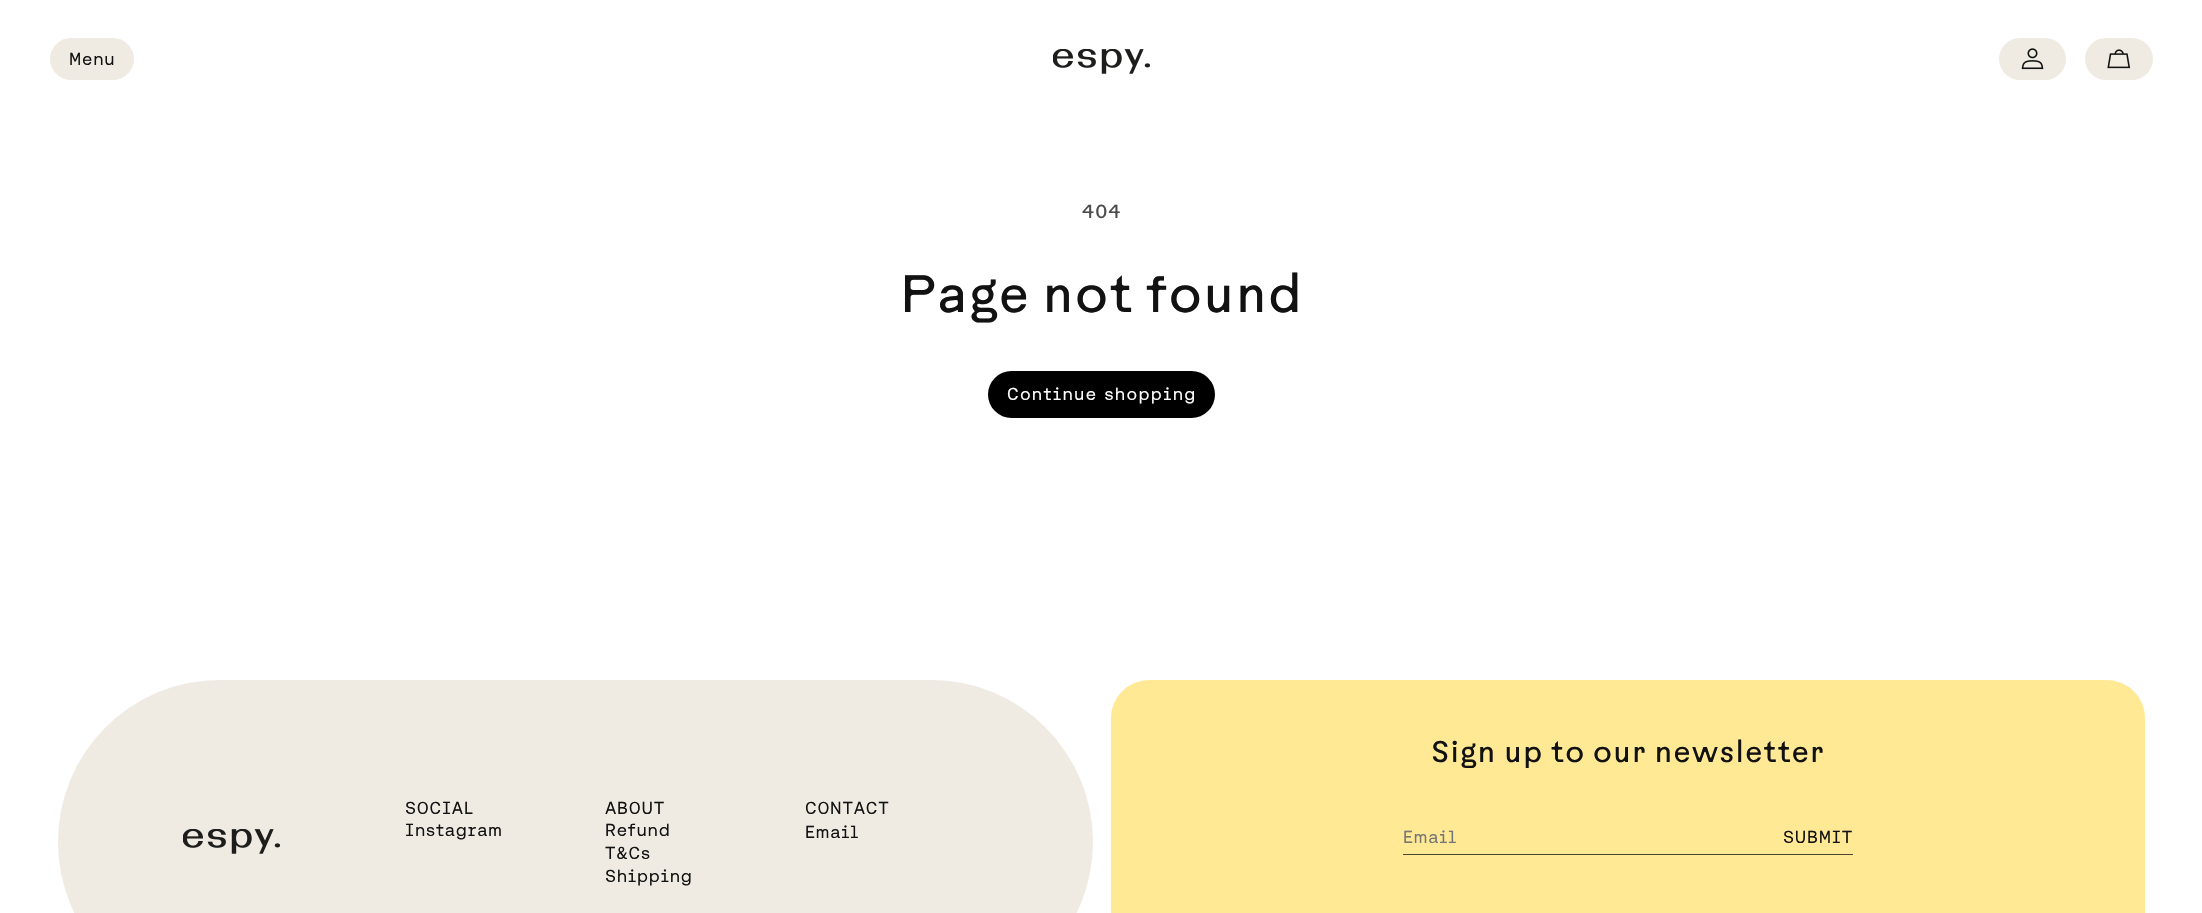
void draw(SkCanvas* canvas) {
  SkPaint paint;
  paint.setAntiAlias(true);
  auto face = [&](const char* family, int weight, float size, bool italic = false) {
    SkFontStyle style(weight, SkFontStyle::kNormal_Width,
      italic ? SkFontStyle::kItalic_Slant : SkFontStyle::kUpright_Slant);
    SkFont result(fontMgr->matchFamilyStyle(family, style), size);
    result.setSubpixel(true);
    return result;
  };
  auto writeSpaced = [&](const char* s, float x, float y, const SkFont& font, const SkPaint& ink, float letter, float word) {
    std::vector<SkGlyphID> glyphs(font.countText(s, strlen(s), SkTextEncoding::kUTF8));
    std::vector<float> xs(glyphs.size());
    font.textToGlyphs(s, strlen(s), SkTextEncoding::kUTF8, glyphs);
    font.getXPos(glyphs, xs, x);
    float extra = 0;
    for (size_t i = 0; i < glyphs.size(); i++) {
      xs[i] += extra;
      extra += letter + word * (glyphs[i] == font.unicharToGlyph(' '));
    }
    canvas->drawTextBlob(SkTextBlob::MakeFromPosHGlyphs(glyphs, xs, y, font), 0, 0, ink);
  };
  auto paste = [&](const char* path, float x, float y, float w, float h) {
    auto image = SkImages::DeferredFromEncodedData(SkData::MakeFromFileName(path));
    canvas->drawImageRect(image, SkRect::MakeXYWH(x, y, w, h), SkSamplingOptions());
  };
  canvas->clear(0xffffffff);
  paint.setColor(0xffefebe3);
  canvas->drawRoundRect(SkRect::MakeXYWH(50, 38, 84, 42), 21, 21, paint);
  paste("img/1.png", 1053, 49, 97, 25);
  canvas->drawRoundRect(SkRect::MakeXYWH(1999, 38, 67, 42), 21, 21, paint);
  paste("img/2.png", 2021, 48, 23, 22);
  canvas->drawRoundRect(SkRect::MakeXYWH(2085, 38, 68, 42), 21, 21, paint);
  paste("img/3.png", 2107, 49, 24, 20);
  paint.setColor(0xff000000);
  canvas->drawRoundRect(SkRect::MakeXYWH(988, 371, 227, 47), 23.5f, 23.5f, paint);
  paint.setColor(0xffefebe3);
  canvas->drawRoundRect(SkRect::MakeXYWH(58, 680, 1035, 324), 162, 162, paint);
  paste("img/4.png", 183, 829, 97, 25);
  paint.setColor(0xffffe995);
  canvas->drawRoundRect(SkRect::MakeXYWH(1111, 680, 1034, 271), 38, 38, paint);
  paint.setColor(0xff4d4833);
  canvas->drawRect(SkRect::MakeXYWH(1403, 854, 450, 1), paint);
  auto f0 = face("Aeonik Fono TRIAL", 400, 17.5f);
  paint.setColor(0xff121212);
  writeSpaced("Menu", 69, 65, f0, paint, 0.75f, 0);
  auto f1 = face("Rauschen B", 400, 19);
  paint.setColor(0xff4d4d4d);
  writeSpaced("404", 1082, 218, f1, paint, 0.75f, 0);
  auto f2 = face("Rauschen B", 400, 52.5f);
  paint.setColor(0xff121212);
  writeSpaced("Page not found", 899, 312, f2, paint, 0.75f, -2);
  paint.setColor(0xffffffff);
  writeSpaced("Continue shopping", 1007, 400, f0, paint, 1.25f, 0);
  paint.setColor(0xff121212);
  {
    const struct { const char* s; float x, y; } items[] = {
      {"SOCIAL", 405, 814},
      {"Instagram", 405, 836},
      {"ABOUT", 605, 814},
      {"Refund", 605, 836},
      {"T&Cs", 605, 859},
      {"Shipping", 605, 882},
      {"CONTACT", 805, 814},
      {"Email", 805, 838},
    };
    for (auto [s, x, y] : items) {
      writeSpaced(s, x, y, f0, paint, 0.75f, 0);
    }
  }
  auto f3 = face("Rauschen B", 400, 30);
  writeSpaced("Sign up to our newsletter", 1431, 762, f3, paint, 0.75f, -0.5f);
  paint.setColor(0xff757575);
  writeSpaced("Email", 1403, 843, f0, paint, 0.75f, 0);
  paint.setColor(0xff121212);
  writeSpaced("SUBMIT", 1783, 843, f0, paint, 0.75f, 0);
}
